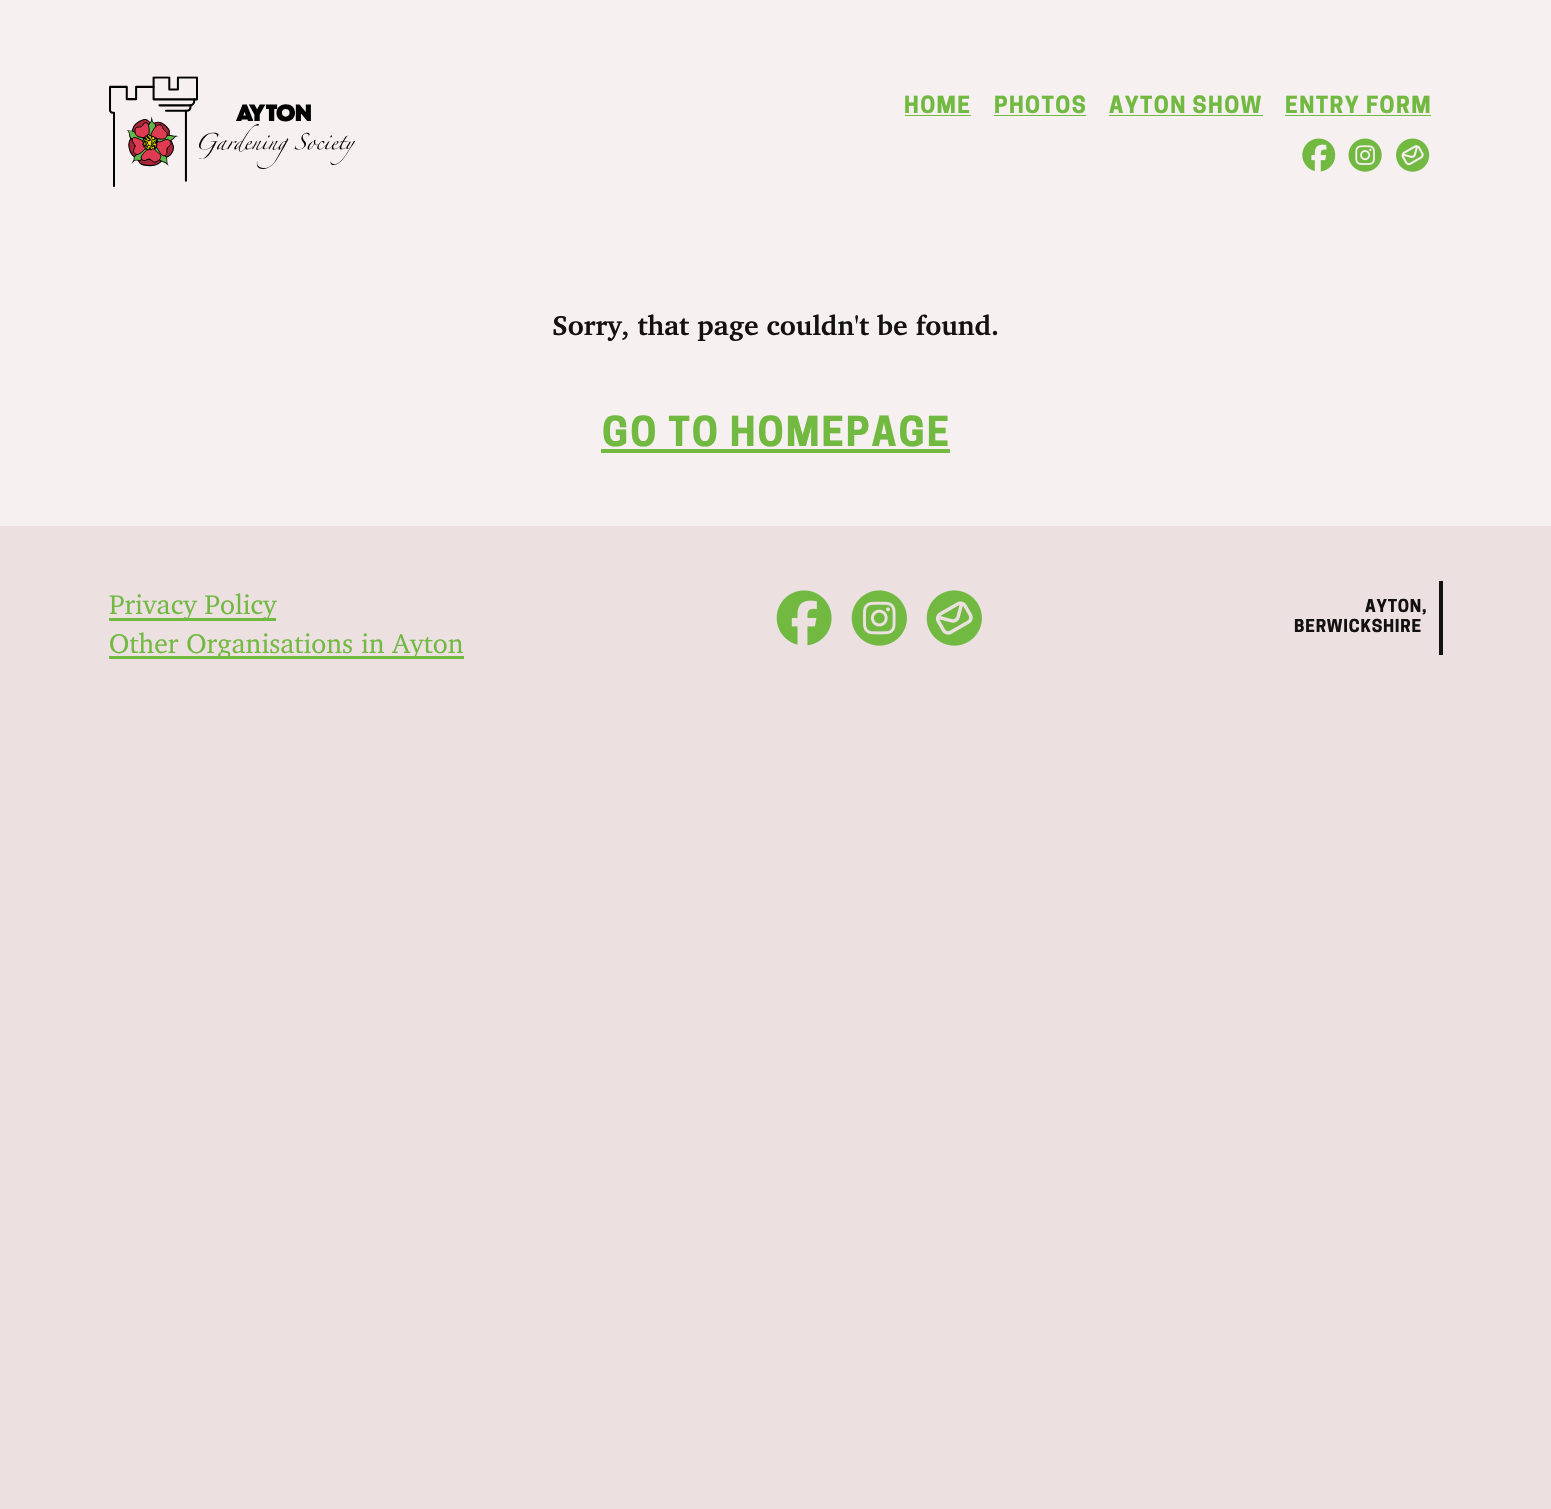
void draw(SkCanvas* canvas) {
  SkPaint paint;
  paint.setAntiAlias(true);
  auto face = [&](const char* family, int weight, float size, bool italic = false) {
    SkFontStyle style(weight, SkFontStyle::kNormal_Width,
      italic ? SkFontStyle::kItalic_Slant : SkFontStyle::kUpright_Slant);
    SkFont result(fontMgr->matchFamilyStyle(family, style), size);
    result.setSubpixel(true);
    return result;
  };
  auto writeSpaced = [&](const char* s, float x, float y, const SkFont& font, const SkPaint& ink, float letter, float word) {
    std::vector<SkGlyphID> glyphs(font.countText(s, strlen(s), SkTextEncoding::kUTF8));
    std::vector<float> xs(glyphs.size());
    font.textToGlyphs(s, strlen(s), SkTextEncoding::kUTF8, glyphs);
    font.getXPos(glyphs, xs, x);
    float extra = 0;
    for (size_t i = 0; i < glyphs.size(); i++) {
      xs[i] += extra;
      extra += letter + word * (glyphs[i] == font.unicharToGlyph(' '));
    }
    canvas->drawTextBlob(SkTextBlob::MakeFromPosHGlyphs(glyphs, xs, y, font), 0, 0, ink);
  };
  auto paste = [&](const char* path, float x, float y, float w, float h) {
    auto image = SkImages::DeferredFromEncodedData(SkData::MakeFromFileName(path));
    canvas->drawImageRect(image, SkRect::MakeXYWH(x, y, w, h), SkSamplingOptions());
  };
  canvas->clear(0xffece0e1);
  paint.setColor(0xfff6f0f0);
  canvas->drawRect(SkRect::MakeXYWH(0, 0, 1551, 526), paint);
  paste("img/1.png", 109, 76, 246, 111);
  {
    const struct { float x, y, w, h; SkColor color; } items[] = {
      {905, 115, 66, 1, 0xff72b942},
      {994, 115, 92, 1, 0xff72b942},
      {1109, 115, 154, 1, 0xff72b942},
      {1285, 115, 146, 1, 0xff72b942},
    };
    for (auto [x, y, w, h, color] : items) {
      paint.setColor(color);
      canvas->drawRect(SkRect::MakeXYWH(x, y, w, h), paint);
    }
  }
  paste("img/2.png", 1302, 138, 34, 34);
  paste("img/3.png", 1348, 138, 34, 34);
  paste("img/4.png", 1396, 138, 34, 34);
  {
    const struct { float x, y, w, h; SkColor color; } items[] = {
      {601, 449, 349, 4, 0xff72b942},
      {109, 618, 167, 3, 0xff72b942},
      {109, 656, 355, 3, 0xff72b942},
    };
    for (auto [x, y, w, h, color] : items) {
      paint.setColor(color);
      canvas->drawRect(SkRect::MakeXYWH(x, y, w, h), paint);
    }
  }
  paste("img/5.png", 776, 590, 56, 56);
  paste("img/6.png", 851, 590, 56, 56);
  paste("img/7.png", 926, 590, 56, 56);
  paint.setColor(0xff131111);
  canvas->drawRect(SkRect::MakeXYWH(1439, 581, 4, 74), paint);
  auto f0 = face("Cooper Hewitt", 700, 22.25f);
  paint.setColor(0xff72b942);
  {
    const struct { const char* s; float x, y; } items[] = {
      {"HOME", 904, 113},
      {"PHOTOS", 994, 113},
      {"AYTON SHOW", 1109, 113},
      {"ENTRY FORM", 1285, 113},
    };
    for (auto [s, x, y] : items) {
      writeSpaced(s, x, y, f0, paint, 1.4f, 0);
    }
  }
  auto f1 = face("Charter", 700, 27.75f);
  paint.setColor(0xff131111);
  canvas->drawString("Sorry, that page couldn't be found.", 552, 335, f1, paint);
  auto f2 = face("Cooper Hewitt", 700, 38.9f);
  paint.setColor(0xff72b942);
  writeSpaced("GO TO HOMEPAGE", 602, 446, f2, paint, 2, 0);
  auto f3 = face("Charter", 400, 27.75f);
  canvas->drawString("Privacy Policy", 109, 614, f3, paint);
  canvas->drawString("Other Organisations in Ayton", 109, 653, f3, paint);
  auto f4 = face("Cooper Hewitt", 700, 16.75f);
  paint.setColor(0xff131111);
  writeSpaced("AYTON,", 1365, 612, f4, paint, 0.75f, 0);
  writeSpaced("BERWICKSHIRE", 1294, 632, f4, paint, 0.75f, 0);
}
